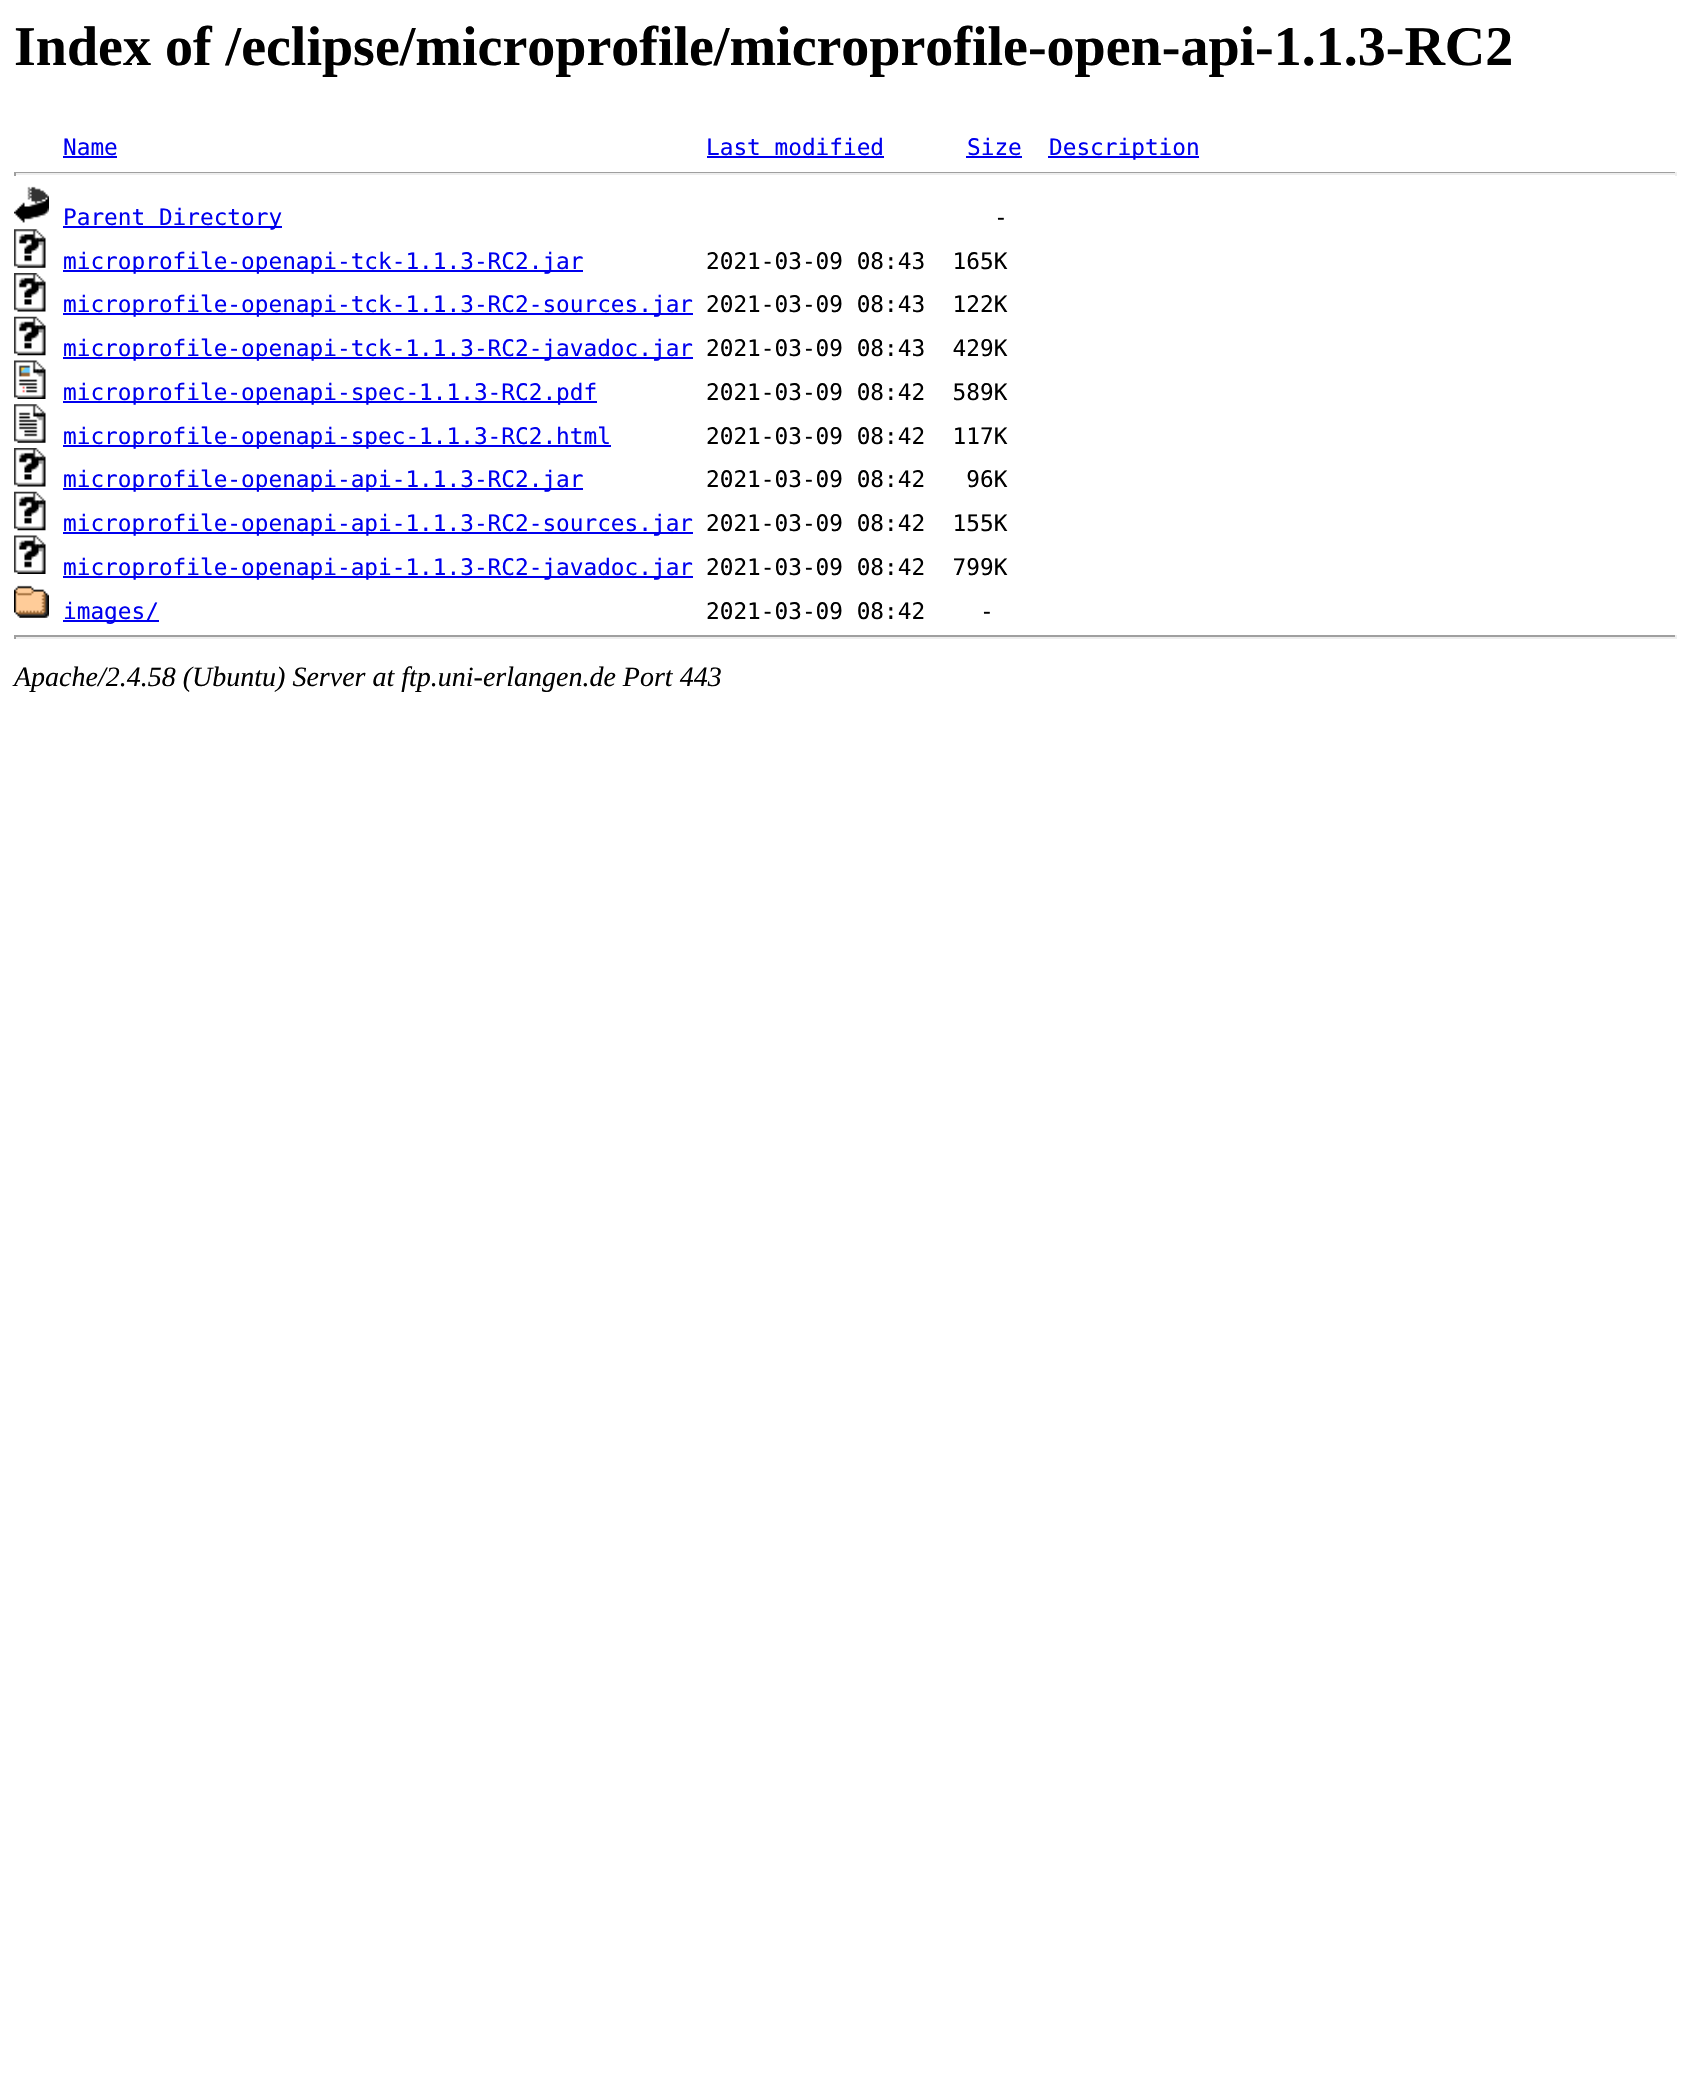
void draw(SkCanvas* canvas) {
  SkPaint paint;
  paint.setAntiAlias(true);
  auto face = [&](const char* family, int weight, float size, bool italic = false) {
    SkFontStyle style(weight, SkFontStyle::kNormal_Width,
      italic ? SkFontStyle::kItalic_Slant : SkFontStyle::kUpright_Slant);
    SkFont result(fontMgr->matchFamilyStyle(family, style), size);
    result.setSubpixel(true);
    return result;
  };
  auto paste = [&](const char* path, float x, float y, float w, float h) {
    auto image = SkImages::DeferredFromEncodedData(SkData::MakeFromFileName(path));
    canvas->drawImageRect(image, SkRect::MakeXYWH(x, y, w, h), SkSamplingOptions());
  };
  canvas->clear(0xffffffff);
  {
    const struct { float x, y, w, h; SkColor color; } items[] = {
      {63, 156, 54, 2, 0xff0000ee},
      {707, 156, 177, 2, 0xff0000ee},
      {966, 156, 56, 2, 0xff0000ee},
      {1048, 156, 151, 2, 0xff0000ee},
      {14, 172, 1663, 1, 0xff9f9f9f},
      {1675, 172, 2, 4, 0xffeeeeee},
      {14, 173, 1663, 2, 0xffeeeeee},
      {14, 172, 2, 4, 0xff9f9f9f},
    };
    for (auto [x, y, w, h, color] : items) {
      paint.setColor(color);
      canvas->drawRect(SkRect::MakeXYWH(x, y, w, h), paint);
    }
  }
  paste("img/1.png", 14, 186, 35, 37);
  paint.setColor(0xff0000ee);
  canvas->drawRect(SkRect::MakeXYWH(63, 226, 219, 2), paint);
  paste("img/2.png", 14, 229, 32, 39);
  canvas->drawRect(SkRect::MakeXYWH(63, 270, 520, 2), paint);
  paste("img/3.png", 14, 273, 32, 39);
  canvas->drawRect(SkRect::MakeXYWH(63, 313, 630, 2), paint);
  paste("img/4.png", 14, 316, 32, 40);
  canvas->drawRect(SkRect::MakeXYWH(63, 357, 630, 2), paint);
  paste("img/5.png", 14, 360, 32, 39);
  canvas->drawRect(SkRect::MakeXYWH(63, 401, 534, 2), paint);
  paste("img/6.png", 14, 404, 32, 39);
  canvas->drawRect(SkRect::MakeXYWH(63, 445, 548, 2), paint);
  paste("img/3.png", 14, 448, 32, 39);
  canvas->drawRect(SkRect::MakeXYWH(63, 488, 520, 2), paint);
  paste("img/4.png", 14, 491, 32, 40);
  canvas->drawRect(SkRect::MakeXYWH(63, 532, 630, 2), paint);
  paste("img/7.png", 14, 535, 32, 39);
  canvas->drawRect(SkRect::MakeXYWH(63, 576, 630, 2), paint);
  paste("img/8.png", 14, 585, 35, 33);
  {
    const struct { float x, y, w, h; SkColor color; } items[] = {
      {63, 620, 96, 2, 0xff0000ee},
      {14, 635, 1663, 2, 0xff9f9f9f},
      {1675, 635, 2, 4, 0xffeeeeee},
      {14, 637, 1663, 2, 0xffeeeeee},
      {14, 635, 2, 4, 0xff9f9f9f},
    };
    for (auto [x, y, w, h, color] : items) {
      paint.setColor(color);
      canvas->drawRect(SkRect::MakeXYWH(x, y, w, h), paint);
    }
  }
  auto f0 = face("Liberation Serif", 700, 56);
  paint.setColor(0xff000000);
  canvas->drawString("Index of /eclipse/microprofile/microprofile-open-api-1.1.3-RC2", 14, 65, f0, paint);
  auto f1 = face("DejaVu Sans Mono", 400, 22.75f);
  paint.setColor(0xff0000ee);
  {
    const struct { const char* s; float x, y; } items[] = {
      {"Name", 63, 155},
      {"Last modified", 706, 155},
      {"Size", 967, 155},
      {"Description", 1049, 155},
      {"Parent Directory", 63, 225},
    };
    for (auto [s, x, y] : items) {
      canvas->drawString(s, x, y, f1, paint);
    }
  }
  paint.setColor(0xff000000);
  canvas->drawString("-", 994, 225, f1, paint);
  paint.setColor(0xff0000ee);
  canvas->drawString("microprofile-openapi-tck-1.1.3-RC2.jar", 63, 269, f1, paint);
  paint.setColor(0xff000000);
  canvas->drawString("2021-03-09 08:43  165K", 706, 269, f1, paint);
  paint.setColor(0xff0000ee);
  canvas->drawString("microprofile-openapi-tck-1.1.3-RC2-sources.jar", 63, 312, f1, paint);
  paint.setColor(0xff000000);
  canvas->drawString("2021-03-09 08:43  122K", 706, 312, f1, paint);
  paint.setColor(0xff0000ee);
  canvas->drawString("microprofile-openapi-tck-1.1.3-RC2-javadoc.jar", 63, 356, f1, paint);
  paint.setColor(0xff000000);
  canvas->drawString("2021-03-09 08:43  429K", 706, 356, f1, paint);
  paint.setColor(0xff0000ee);
  canvas->drawString("microprofile-openapi-spec-1.1.3-RC2.pdf", 63, 400, f1, paint);
  paint.setColor(0xff000000);
  canvas->drawString("2021-03-09 08:42  589K", 706, 400, f1, paint);
  paint.setColor(0xff0000ee);
  canvas->drawString("microprofile-openapi-spec-1.1.3-RC2.html", 63, 444, f1, paint);
  paint.setColor(0xff000000);
  canvas->drawString("2021-03-09 08:42  117K", 706, 444, f1, paint);
  paint.setColor(0xff0000ee);
  canvas->drawString("microprofile-openapi-api-1.1.3-RC2.jar", 63, 487, f1, paint);
  paint.setColor(0xff000000);
  canvas->drawString("2021-03-09 08:42   96K", 706, 487, f1, paint);
  paint.setColor(0xff0000ee);
  canvas->drawString("microprofile-openapi-api-1.1.3-RC2-sources.jar", 63, 531, f1, paint);
  paint.setColor(0xff000000);
  canvas->drawString("2021-03-09 08:42  155K", 706, 531, f1, paint);
  paint.setColor(0xff0000ee);
  canvas->drawString("microprofile-openapi-api-1.1.3-RC2-javadoc.jar", 63, 575, f1, paint);
  paint.setColor(0xff000000);
  canvas->drawString("2021-03-09 08:42  799K", 706, 575, f1, paint);
  paint.setColor(0xff0000ee);
  canvas->drawString("images/", 63, 619, f1, paint);
  paint.setColor(0xff000000);
  canvas->drawString("2021-03-09 08:42    -", 706, 619, f1, paint);
  auto f2 = face("Liberation Serif", 400, 28, true);
  canvas->drawString("Apache/2.4.58 (Ubuntu) Server at ftp.uni-erlangen.de Port 443", 14, 686, f2, paint);
}
